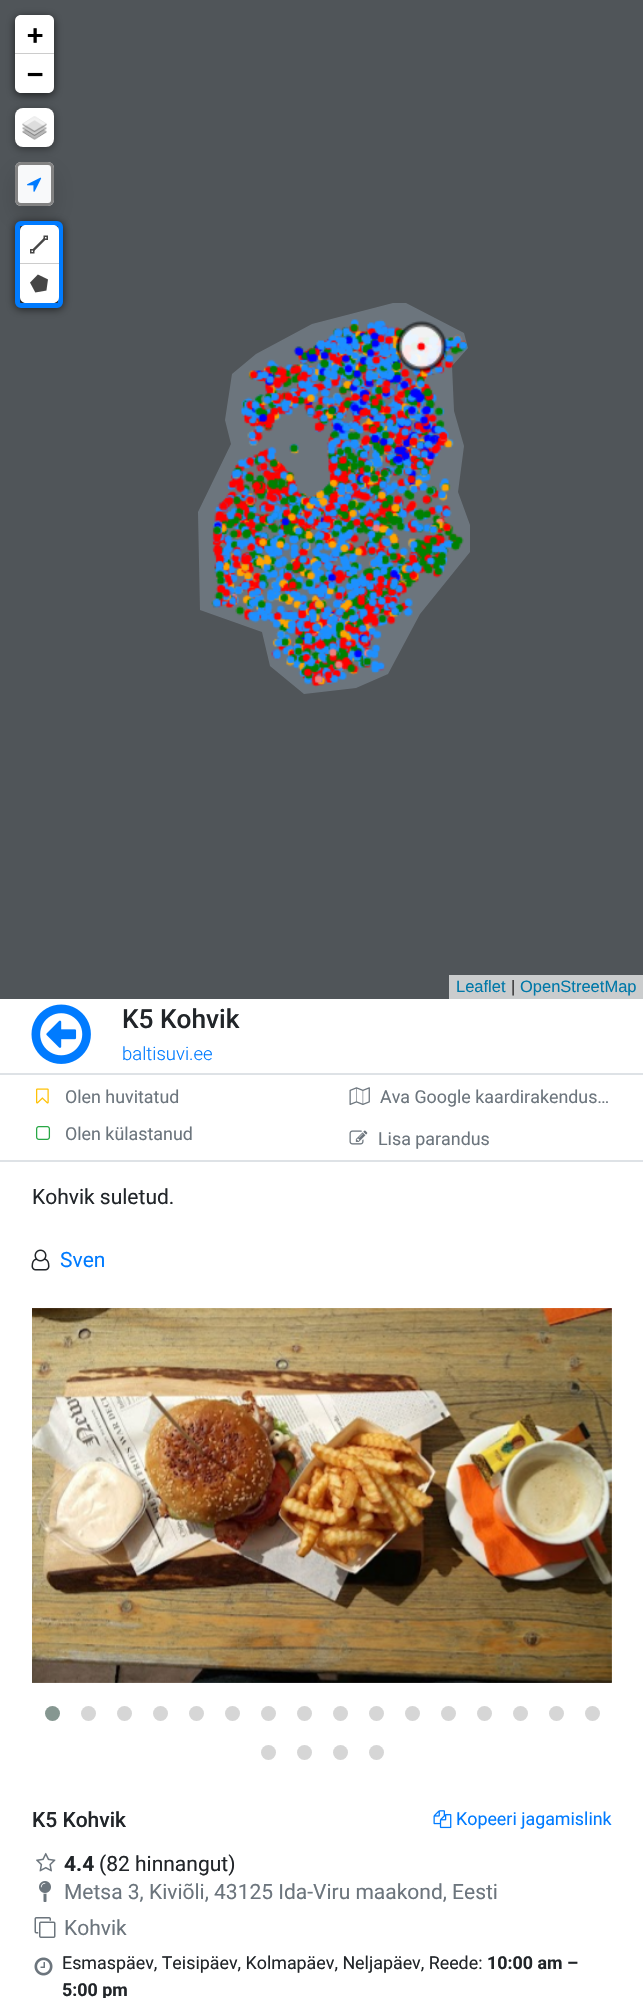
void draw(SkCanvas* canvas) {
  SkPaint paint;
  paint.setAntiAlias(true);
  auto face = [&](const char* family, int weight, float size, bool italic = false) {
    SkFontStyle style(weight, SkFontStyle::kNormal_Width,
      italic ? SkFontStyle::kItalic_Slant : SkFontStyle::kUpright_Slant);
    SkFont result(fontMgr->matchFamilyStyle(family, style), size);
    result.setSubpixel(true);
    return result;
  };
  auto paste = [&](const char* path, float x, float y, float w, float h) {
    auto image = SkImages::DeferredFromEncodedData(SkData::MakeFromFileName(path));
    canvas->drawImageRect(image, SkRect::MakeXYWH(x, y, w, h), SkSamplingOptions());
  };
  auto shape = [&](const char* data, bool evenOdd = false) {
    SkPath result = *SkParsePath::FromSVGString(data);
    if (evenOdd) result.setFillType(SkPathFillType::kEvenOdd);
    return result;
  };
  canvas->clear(0xffffffff);
  paint.setColor(0xff6c757d);
  canvas->drawRect(SkRect::MakeXYWH(0, 0, 643, 999), paint);
  paste("img/1.png", 211, 319, 258, 369);
  canvas->save();
  canvas->clipRect(SkRect::MakeXYWH(0, 0, 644, 999));
  paint.setColor(0x80333333);
  canvas->drawPath(shape("M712 1102H-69V-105H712ZM256 354L232 374L225 420L231 444L198 512L200 610L262 632L270 666L304 694L356 688L388 674L420 614L470 552V525L458 492L464 446L454 411L452 366L468 348L464 333L406 303H393L312 324Z", true), paint);
  canvas->restore();
  paint.setColor(0xa6000000);
  paint.setMaskFilter(SkMaskFilter::MakeBlur(kNormal_SkBlurStyle, 4));
  canvas->drawRoundRect(SkRect::MakeXYWH(15, 17, 39, 78), 6, 6, paint);
  paint.setMaskFilter(nullptr);
  paint.setColor(0xffffffff);
  canvas->drawPath(shape("M21 15H48C51.5 15 54 17.5 54 21V54H15V21C15 17.5 17.5 15 21 15Z"), paint);
  paint.setColor(0xffcccccc);
  canvas->drawRect(SkRect::MakeXYWH(15, 53, 39, 1), paint);
  paint.setColor(0xffffffff);
  canvas->drawPath(shape("M15 54H54V87C54 90.5 51.5 93 48 93H21C17.5 93 15 90.5 15 87Z"), paint);
  paint.setColor(0x66000000);
  paint.setMaskFilter(SkMaskFilter::MakeBlur(kNormal_SkBlurStyle, 4));
  canvas->drawRoundRect(SkRect::MakeXYWH(15, 110, 39, 39), 8, 8, paint);
  paint.setMaskFilter(nullptr);
  paint.setColor(0xffffffff);
  canvas->drawRoundRect(SkRect::MakeXYWH(15, 108, 39, 39), 8, 8, paint);
  paste("img/2.png", 22, 116, 25, 24);
  paint.setColor(0x26000000);
  paint.setMaskFilter(SkMaskFilter::MakeBlur(kNormal_SkBlurStyle, 10.5f));
  canvas->drawRoundRect(SkRect::MakeXYWH(15, 173, 39, 43), 6, 6, paint);
  paint.setMaskFilter(nullptr);
  paint.setColor(0xfff8f9fa);
  canvas->drawRoundRect(SkRect::MakeXYWH(15, 162, 39, 44), 6, 6, paint);
  paint.setStroke(true);
  paint.setStrokeWidth(3);
  paint.setColor(0xcc646464);
  canvas->drawRoundRect(SkRect::MakeXYWH(16.5f, 163.5f, 36, 41), 4.5f, 4.5f, paint);
  paste("img/3.png", 27, 177, 15, 15);
  paint.setStroke(false);
  paint.setColor(0xa6000000);
  paint.setMaskFilter(SkMaskFilter::MakeBlur(kNormal_SkBlurStyle, 4));
  canvas->drawRoundRect(SkRect::MakeXYWH(15, 222, 48, 87), 6, 6, paint);
  paint.setMaskFilter(nullptr);
  paint.setStroke(true);
  paint.setStrokeWidth(5);
  paint.setColor(0xff007bff);
  canvas->drawRoundRect(SkRect::MakeXYWH(17.5f, 223.5f, 43, 82), 3.5f, 3.5f, paint);
  paint.setStroke(false);
  paint.setColor(0xffffffff);
  canvas->drawPath(shape("M26 225H53C56.5 225 59 227.5 59 231V263H20V231C20 227.5 22.5 225 26 225Z"), paint);
  paste("img/4.png", 30, 235, 18, 19);
  paint.setColor(0xffcccccc);
  canvas->drawRect(SkRect::MakeXYWH(20, 263, 39, 1), paint);
  paint.setColor(0xffffffff);
  canvas->drawPath(shape("M20 264H59V297C59 300.5 56.5 303 53 303H26C22.5 303 20 300.5 20 297Z"), paint);
  paste("img/5.png", 30, 274, 18, 19);
  paint.setColor(0xffcacccd);
  canvas->drawRect(SkRect::MakeXYWH(449, 975, 194, 24), paint);
  paint.setColor(0xffdee2e6);
  canvas->drawRect(SkRect::MakeXYWH(0, 1073, 643, 2), paint);
  paste("img/6.png", 31, 1004, 60, 60);
  canvas->drawRect(SkRect::MakeXYWH(0, 1160, 643, 2), paint);
  paste("img/7.png", 36, 1088, 13, 16);
  paste("img/8.png", 36, 1126, 15, 14);
  paste("img/9.png", 349, 1087, 21, 18);
  paste("img/10.png", 349, 1130, 19, 15);
  paste("img/11.png", 31, 1249, 19, 22);
  paste("img/12.png", 32, 1308, 580, 375);
  paste("img/13.png", 32, 1308, 580, 375);
  paint.setColor(0xff869791);
  canvas->drawCircle(52.5f, 1713.5f, 7.5f, paint);
  paint.setColor(0xffd6d6d6);
  canvas->drawCircle(88.5f, 1713.5f, 7.5f, paint);
  canvas->drawCircle(124.5f, 1713.5f, 7.5f, paint);
  canvas->drawCircle(160.5f, 1713.5f, 7.5f, paint);
  canvas->drawCircle(196.5f, 1713.5f, 7.5f, paint);
  canvas->drawCircle(232.5f, 1713.5f, 7.5f, paint);
  canvas->drawCircle(268.5f, 1713.5f, 7.5f, paint);
  canvas->drawCircle(304.5f, 1713.5f, 7.5f, paint);
  canvas->drawCircle(340.5f, 1713.5f, 7.5f, paint);
  canvas->drawCircle(376.5f, 1713.5f, 7.5f, paint);
  canvas->drawCircle(412.5f, 1713.5f, 7.5f, paint);
  canvas->drawCircle(448.5f, 1713.5f, 7.5f, paint);
  canvas->drawCircle(484.5f, 1713.5f, 7.5f, paint);
  canvas->drawCircle(520.5f, 1713.5f, 7.5f, paint);
  canvas->drawCircle(556.5f, 1713.5f, 7.5f, paint);
  canvas->drawCircle(592.5f, 1713.5f, 7.5f, paint);
  canvas->drawCircle(268.5f, 1752.5f, 7.5f, paint);
  canvas->drawCircle(304.5f, 1752.5f, 7.5f, paint);
  canvas->drawCircle(340.5f, 1752.5f, 7.5f, paint);
  canvas->drawCircle(376.5f, 1752.5f, 7.5f, paint);
  paste("img/14.png", 433, 1810, 19, 19);
  paste("img/15.png", 36, 1852, 20, 20);
  paste("img/16.png", 39, 1881, 12, 21);
  paste("img/17.png", 34, 1917, 22, 21);
  paste("img/18.png", 34, 1957, 19, 19);
  auto f0 = face("DejaVu Sans Mono", 700, 27);
  paint.setColor(0xff000000);
  canvas->drawString("+", 27, 44, f0, paint);
  canvas->drawString("−", 27, 83, f0, paint);
  auto f1 = face("Liberation Sans", 400, 16.5f);
  paint.setColor(0xff0078a8);
  canvas->drawString("Leaflet", 456, 992, f1, paint);
  paint.setColor(0xff333333);
  canvas->drawString("|", 511, 992, f1, paint);
  paint.setColor(0xff0078a8);
  canvas->drawString("OpenStreetMap", 520, 992, f1, paint);
  auto f2 = face("Roboto", 500, 26.25f);
  paint.setColor(0xff212529);
  canvas->drawString("K5 Kohvik", 122, 1028, f2, paint);
  auto f3 = face("Roboto", 300, 18.5f);
  paint.setColor(0xff007bff);
  canvas->drawString("baltisuvi.ee", 122, 1060, f3, paint);
  auto f4 = face("Roboto", 400, 17.85f);
  paint.setColor(0xff6c757d);
  {
    const struct { const char* s; float x, y; } items[] = {
      {"Olen huvitatud", 65, 1103},
      {"Olen külastanud", 65, 1140},
      {"Ava Google kaardirakendus…", 380, 1103},
      {"Lisa parandus", 378, 1145},
    };
    for (auto [s, x, y] : items) {
      canvas->drawString(s, x, y, f4, paint);
    }
  }
  auto f5 = face("Roboto", 400, 21);
  paint.setColor(0xff212529);
  canvas->drawString("Kohvik suletud.", 32, 1204, f5, paint);
  paint.setColor(0xff007bff);
  canvas->drawString("Sven", 60, 1267, f5, paint);
  auto f6 = face("Roboto", 500, 21);
  paint.setColor(0xff212529);
  canvas->drawString("K5 Kohvik", 32, 1827, f6, paint);
  paint.setColor(0xff007bff);
  canvas->drawString("Kopeeri jagamislink", 456, 1825, f4, paint);
  auto f7 = face("Roboto", 700, 21);
  paint.setColor(0xff212529);
  canvas->drawString("4.4", 64, 1871, f7, paint);
  canvas->drawString("(82 hinnangut)", 99, 1871, f5, paint);
  paint.setColor(0xff6c757d);
  canvas->drawString("Metsa 3, Kiviõli, 43125 Ida-Viru maakond, Eesti", 64, 1899, f5, paint);
  canvas->drawString("Kohvik", 64, 1935, f5, paint);
  paint.setColor(0xff212529);
  canvas->drawString("Esmaspäev, Teisipäev, Kolmapäev, Neljapäev, Reede:", 62, 1969, f4, paint);
  auto f8 = face("Roboto", 700, 17.85f);
  canvas->drawString("10:00 am –", 487, 1969, f8, paint);
  canvas->drawString("5:00 pm", 62, 1996, f8, paint);
}
